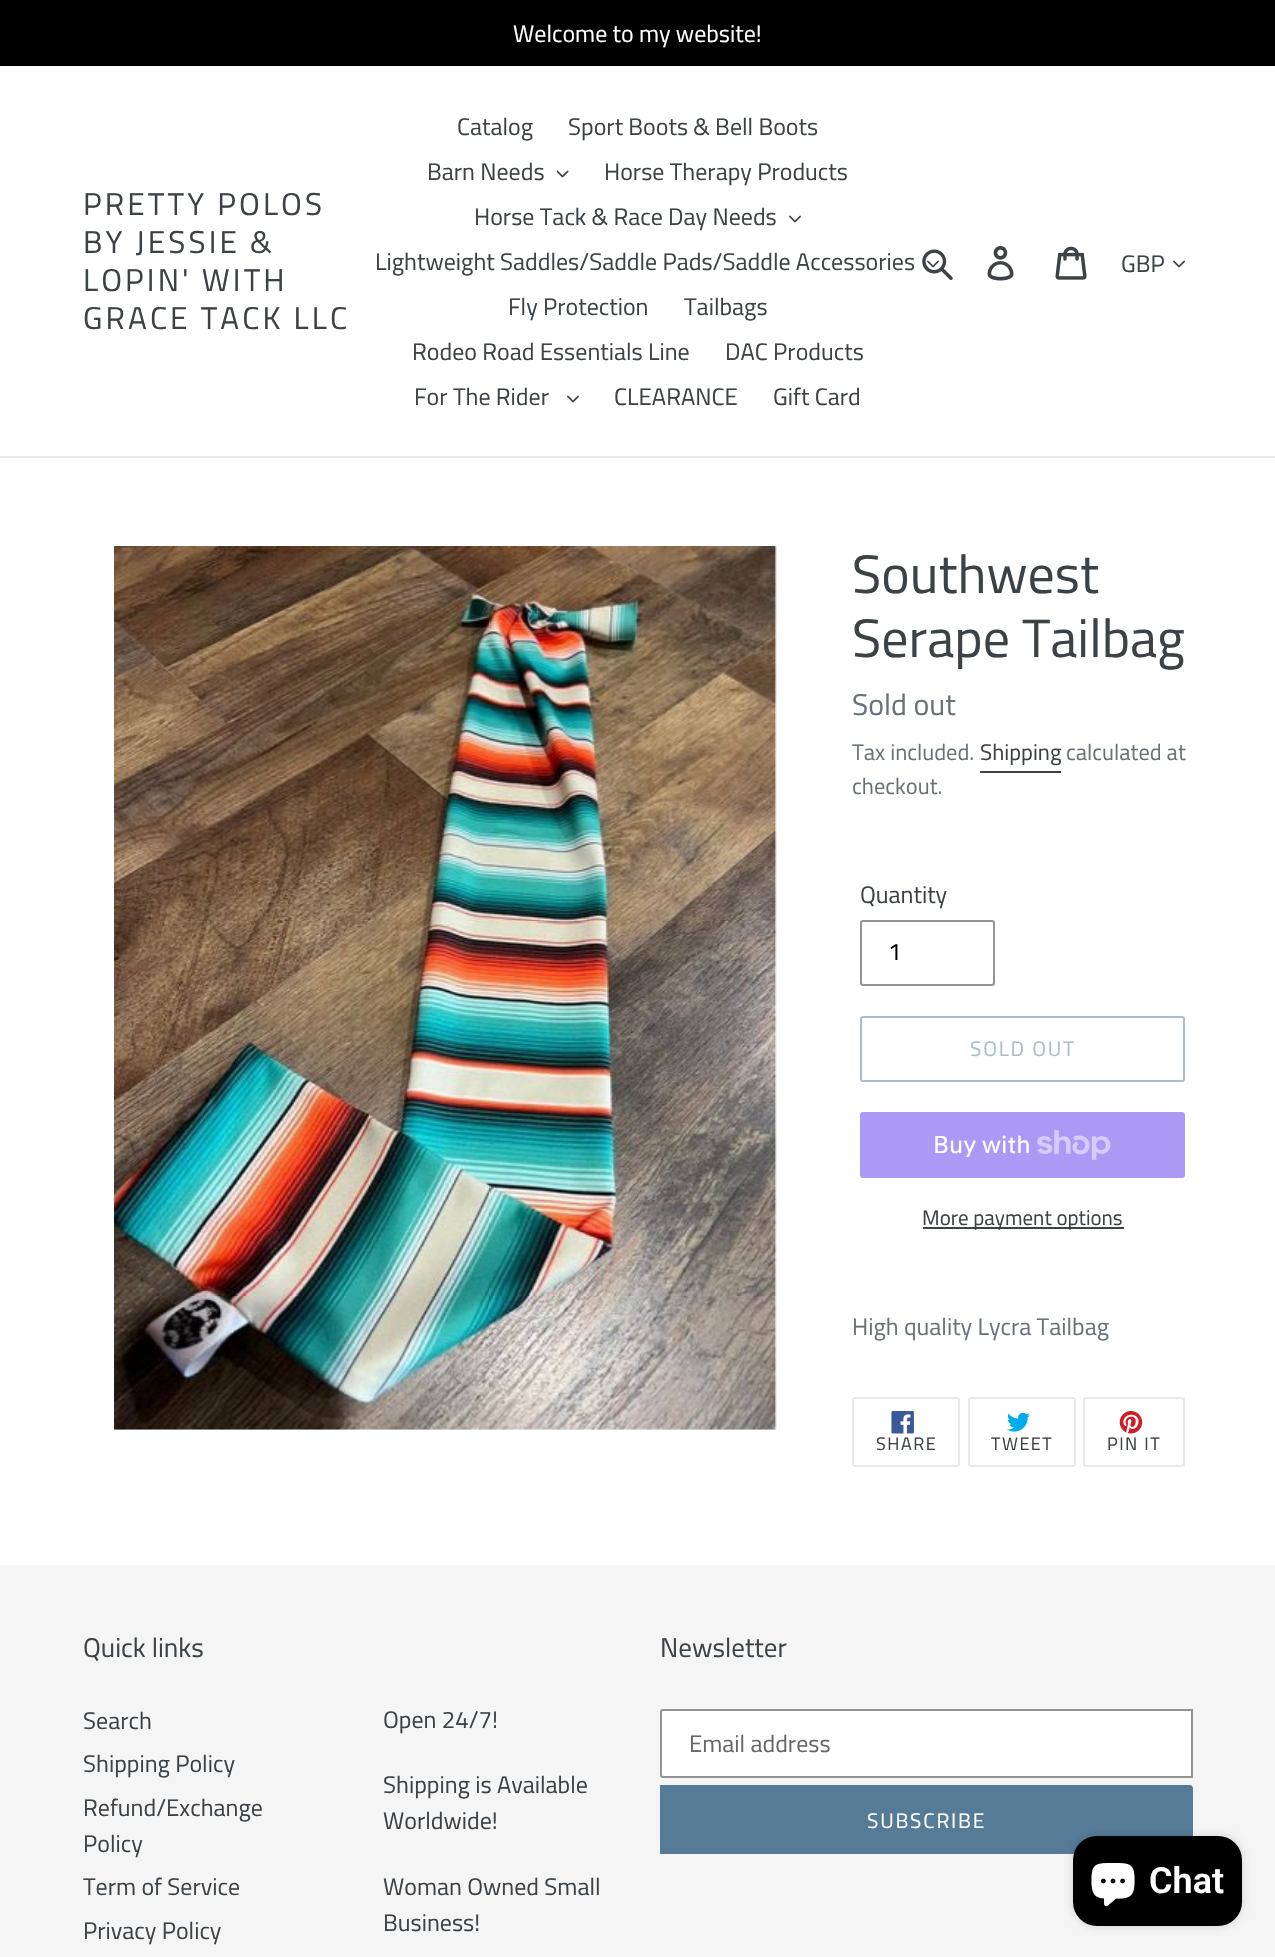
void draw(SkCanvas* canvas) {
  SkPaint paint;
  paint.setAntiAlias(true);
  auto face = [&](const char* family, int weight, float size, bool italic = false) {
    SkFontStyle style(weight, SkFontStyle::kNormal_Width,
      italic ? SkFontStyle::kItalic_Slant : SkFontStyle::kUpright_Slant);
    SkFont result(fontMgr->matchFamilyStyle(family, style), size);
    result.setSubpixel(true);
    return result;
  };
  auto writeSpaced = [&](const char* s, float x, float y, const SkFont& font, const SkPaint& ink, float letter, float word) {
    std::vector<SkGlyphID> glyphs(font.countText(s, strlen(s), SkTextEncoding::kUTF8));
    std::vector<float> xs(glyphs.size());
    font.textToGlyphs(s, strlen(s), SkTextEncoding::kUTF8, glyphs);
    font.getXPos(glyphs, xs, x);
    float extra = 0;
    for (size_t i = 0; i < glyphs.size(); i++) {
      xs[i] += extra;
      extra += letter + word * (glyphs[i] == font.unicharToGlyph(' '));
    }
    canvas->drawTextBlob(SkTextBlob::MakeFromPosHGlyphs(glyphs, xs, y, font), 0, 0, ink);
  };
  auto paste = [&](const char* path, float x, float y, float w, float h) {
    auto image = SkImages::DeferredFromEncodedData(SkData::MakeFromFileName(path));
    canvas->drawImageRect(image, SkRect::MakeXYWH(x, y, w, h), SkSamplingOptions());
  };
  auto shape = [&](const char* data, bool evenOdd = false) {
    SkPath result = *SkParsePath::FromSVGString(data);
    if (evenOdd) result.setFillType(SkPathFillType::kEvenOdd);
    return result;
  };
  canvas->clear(0xffffffff);
  paint.setColor(0xff000000);
  canvas->drawRect(SkRect::MakeXYWH(0, 0, 1275, 66), paint);
  paint.setColor(0xffe8e9eb);
  canvas->drawRect(SkRect::MakeXYWH(0, 456, 1275, 2), paint);
  paste("img/1.png", 557, 170, 12, 8);
  paste("img/2.png", 789, 215, 12, 8);
  paste("img/2.png", 927, 260, 12, 8);
  paste("img/2.png", 567, 395, 12, 8);
  paste("img/3.png", 922, 249, 31, 31);
  paste("img/4.png", 987, 246, 27, 35);
  paste("img/5.png", 1055, 246, 32, 34);
  paste("img/2.png", 1173, 260, 12, 8);
  paste("img/6.png", 114, 546, 663, 884);
  paint.setColor(0xff3d4246);
  canvas->drawRect(SkRect::MakeXYWH(980, 771, 81, 2), paint);
  paint.setStroke(true);
  paint.setStrokeWidth(2);
  paint.setColor(0xff949494);
  canvas->drawRoundRect(SkRect::MakeXYWH(861, 921, 133, 64), 2, 2, paint);
  paint.setColor(0xffaabdcb);
  canvas->drawRoundRect(SkRect::MakeXYWH(861, 1017, 323, 64), 2, 2, paint);
  paint.setStroke(false);
  paint.setColor(0xffaa99f5);
  canvas->drawRoundRect(SkRect::MakeXYWH(860, 1112, 325, 66), 3, 3, paint);
  paste("img/7.png", 1037, 1130, 74, 30);
  paint.setColor(0xff3d4246);
  canvas->drawRect(SkRect::MakeXYWH(923, 1227, 201, 2), paint);
  paint.setStroke(true);
  paint.setColor(0xffe8e9eb);
  canvas->drawRoundRect(SkRect::MakeXYWH(853, 1398, 106, 68), 2, 2, paint);
  paste("img/8.png", 891, 1411, 23, 23);
  canvas->drawRoundRect(SkRect::MakeXYWH(969, 1398, 106, 68), 2, 2, paint);
  paste("img/9.png", 1007, 1412, 23, 20);
  canvas->drawRoundRect(SkRect::MakeXYWH(1084, 1398, 100, 68), 2, 2, paint);
  paste("img/10.png", 1119, 1411, 24, 23);
  paint.setStroke(false);
  paint.setColor(0xfff5f5f5);
  canvas->drawRect(SkRect::MakeXYWH(0, 1565, 1275, 392), paint);
  paint.setColor(0xffffffff);
  canvas->drawPath(shape("M663 1710H1192V1777H663C662 1777 661 1776 661 1775V1712C661 1711 662 1710 663 1710Z"), paint);
  paint.setStroke(true);
  paint.setColor(0xff949494);
  canvas->drawPath(shape("M663 1710H1192V1777H663C662 1777 661 1776 661 1775V1712C661 1711 662 1710 663 1710Z"), paint);
  paint.setStroke(false);
  paint.setColor(0xff557b97);
  canvas->drawPath(shape("M660 1785H1190C1191.5 1785 1193 1786.5 1193 1788V1851C1193 1852.5 1191.5 1854 1190 1854H660Z"), paint);
  paint.setColor(0x26000000);
  paint.setMaskFilter(SkMaskFilter::MakeBlur(kNormal_SkBlurStyle, 4));
  canvas->drawRoundRect(SkRect::MakeXYWH(1073, 1836, 169, 90), 24, 24, paint);
  paint.setMaskFilter(nullptr);
  paint.setColor(0xff000000);
  canvas->drawRoundRect(SkRect::MakeXYWH(1073, 1836, 169, 90), 24, 24, paint);
  paste("img/11.png", 1091, 1863, 44, 44);
  auto f0 = face("Titillium Web", 400, 24);
  paint.setColor(0xffffffff);
  canvas->drawString("Welcome to my website!", 513, 42, f0, paint);
  auto f1 = face("Titillium Web", 400, 31.5f);
  paint.setColor(0xff3d4246);
  {
    const struct { const char* s; float x, y; } items[] = {
      {"PRETTY POLOS", 83, 215},
      {"BY JESSIE &", 83, 253},
      {"LOPIN' WITH", 83, 291},
      {"GRACE TACK LLC", 83, 329},
    };
    for (auto [s, x, y] : items) {
      writeSpaced(s, x, y, f1, paint, 3.1f, 0);
    }
  }
  {
    const struct { const char* s; float x, y; } items[] = {
      {"Catalog", 457, 135},
      {"Sport Boots & Bell Boots", 568, 135},
      {"Barn Needs", 427, 180},
      {"Horse Therapy Products", 604, 180},
      {"Horse Tack & Race Day Needs", 474, 225},
      {"Lightweight Saddles/Saddle Pads/Saddle Accessories", 375, 270},
      {"Fly Protection", 508, 315},
      {"Tailbags", 684, 315},
      {"Rodeo Road Essentials Line", 412, 360},
      {"DAC Products", 725, 360},
      {"For The Rider", 414, 405},
      {"CLEARANCE", 614, 405},
      {"Gift Card", 773, 405},
      {"GBP", 1121, 272},
    };
    for (auto [s, x, y] : items) {
      canvas->drawString(s, x, y, f0, paint);
    }
  }
  auto f2 = face("Titillium Web", 400, 54);
  canvas->drawString("Southwest", 852, 593, f2, paint);
  canvas->drawString("Serape Tailbag", 852, 657, f2, paint);
  auto f3 = face("Titillium Web", 400, 30);
  paint.setColor(0xff69727b);
  canvas->drawString("Sold out", 852, 715, f3, paint);
  auto f4 = face("Titillium Web", 400, 22.5f);
  canvas->drawString("Tax included.", 852, 760, f4, paint);
  paint.setColor(0xff3d4246);
  canvas->drawString("Shipping", 980, 760, f4, paint);
  paint.setColor(0xff69727b);
  canvas->drawString("calculated at", 1066, 760, f4, paint);
  canvas->drawString("checkout.", 852, 794, f4, paint);
  paint.setColor(0xff3d4246);
  canvas->drawString("Quantity", 860, 903, f0, paint);
  paint.setColor(0xff000000);
  canvas->drawString("1", 888, 960, f0, paint);
  auto f5 = face("Titillium Web", 400, 21);
  paint.setColor(0xffaabdcb);
  writeSpaced("SOLD OUT", 970, 1056, f5, paint, 1.75f, 0);
  auto f6 = face("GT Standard", 400, 24);
  paint.setColor(0xffffffff);
  canvas->drawString("Buy with", 933, 1153, f6, paint);
  paint.setColor(0xff3d4246);
  canvas->drawString("More payment options", 922, 1225, f5, paint);
  paint.setColor(0xff69727b);
  canvas->drawString("High quality Lycra Tailbag", 852, 1335, f0, paint);
  auto f7 = face("Titillium Web", 400, 18);
  paint.setColor(0xff3d4246);
  {
    const struct { const char* s; float x, y; } items[] = {
      {"SHARE", 876, 1450},
      {"TWEET", 991, 1450},
      {"PIN IT", 1107, 1450},
    };
    for (auto [s, x, y] : items) {
      writeSpaced(s, x, y, f7, paint, 1.5f, 0);
    }
  }
  auto f8 = face("Titillium Web", 400, 27);
  canvas->drawString("Quick links", 83, 1657, f8, paint);
  {
    const struct { const char* s; float x, y; } items[] = {
      {"Search", 83, 1729},
      {"Shipping Policy", 83, 1772},
      {"Refund/Exchange", 83, 1816},
      {"Policy", 83, 1852},
      {"Term of Service", 83, 1895},
      {"Privacy Policy", 83, 1939},
      {"Open 24/7!", 383, 1728},
      {"Shipping is Available", 383, 1793},
      {"Worldwide!", 383, 1829},
      {"Woman Owned Small", 383, 1895},
      {"Business!", 383, 1931},
    };
    for (auto [s, x, y] : items) {
      canvas->drawString(s, x, y, f0, paint);
    }
  }
  canvas->drawString("Newsletter", 660, 1657, f8, paint);
  paint.setColor(0xff666666);
  canvas->drawString("Email address", 689, 1752, f0, paint);
  paint.setColor(0xffffffff);
  writeSpaced("SUBSCRIBE", 867, 1828, f5, paint, 1.75f, 0);
  auto f9 = face("Roboto", 600, 36);
  canvas->drawString("Chat", 1149, 1893, f9, paint);
}
